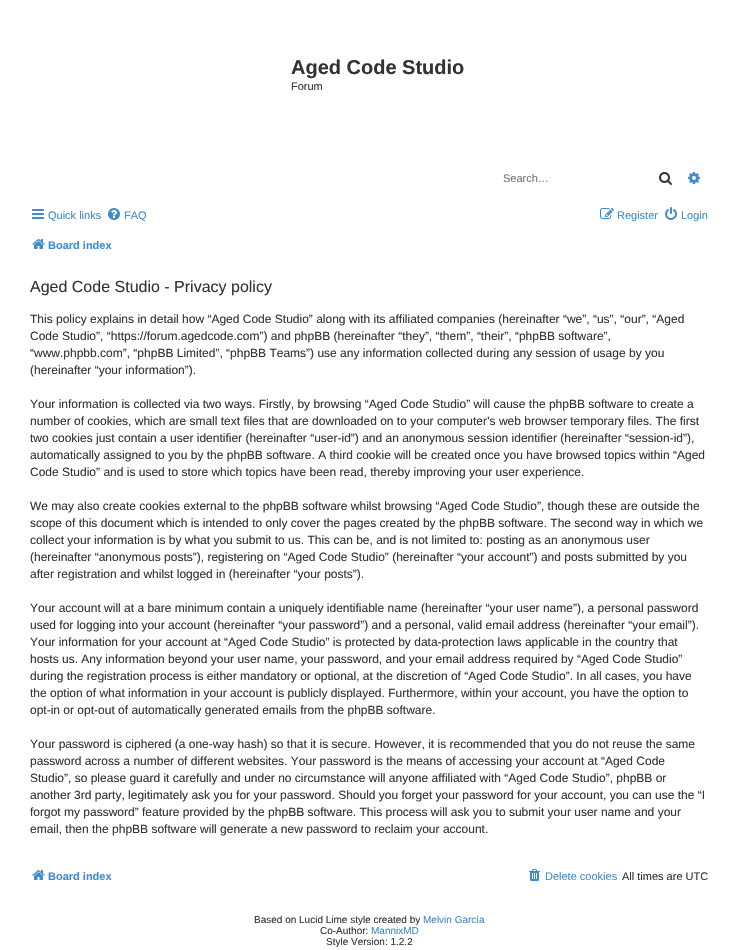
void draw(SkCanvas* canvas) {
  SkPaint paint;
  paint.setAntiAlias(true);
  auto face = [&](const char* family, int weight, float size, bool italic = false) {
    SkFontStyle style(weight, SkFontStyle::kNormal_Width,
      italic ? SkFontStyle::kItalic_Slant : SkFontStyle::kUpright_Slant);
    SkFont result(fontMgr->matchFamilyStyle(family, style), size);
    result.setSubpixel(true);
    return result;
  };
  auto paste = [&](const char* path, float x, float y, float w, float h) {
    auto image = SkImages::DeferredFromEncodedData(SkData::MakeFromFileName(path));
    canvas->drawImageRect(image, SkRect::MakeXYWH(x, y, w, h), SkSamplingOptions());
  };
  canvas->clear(0xffffffff);
  paste("img/1.png", 659, 172, 13, 13);
  paste("img/2.png", 688, 172, 12, 12);
  paste("img/3.png", 32, 209, 12, 10);
  paste("img/4.png", 108, 208, 12, 12);
  paste("img/5.png", 600, 208, 14, 11);
  paste("img/6.png", 665, 207, 12, 13);
  paste("img/7.png", 32, 239, 13, 10);
  paste("img/7.png", 32, 870, 13, 10);
  paste("img/8.png", 529, 869, 11, 12);
  auto f0 = face("Liberation Sans", 700, 20);
  paint.setColor(0xff333333);
  canvas->drawString("Aged Code Studio", 291, 74, f0, paint);
  auto f1 = face("Liberation Sans", 400, 11);
  canvas->drawString("Forum", 291, 90, f1, paint);
  paint.setColor(0xff757575);
  canvas->drawString("Search…", 503, 182, f1, paint);
  paint.setColor(0xff428bca);
  {
    const struct { const char* s; float x, y; } items[] = {
      {"Quick links", 48, 219},
      {"FAQ", 124, 219},
      {"Register", 617, 219},
      {"Login", 681, 219},
    };
    for (auto [s, x, y] : items) {
      canvas->drawString(s, x, y, f1, paint);
    }
  }
  auto f2 = face("Liberation Sans", 700, 11);
  canvas->drawString("Board index", 48, 249, f2, paint);
  auto f3 = face("Liberation Sans", 400, 16);
  paint.setColor(0xff333333);
  canvas->drawString("Aged Code Studio - Privacy policy", 30, 292, f3, paint);
  auto f4 = face("Liberation Sans", 400, 12);
  {
    const struct { const char* s; float x, y; } items[] = {
      {"This policy explains in detail how “Aged Code Studio” along with its affiliated companies (hereinafter “we”, “us”, “our”, “Aged", 30, 323},
      {"Code Studio”, “https://forum.agedcode.com”) and phpBB (hereinafter “they”, “them”, “their”, “phpBB software”,", 30, 340},
      {"“www.phpbb.com”, “phpBB Limited”, “phpBB Teams”) use any information collected during any session of usage by you", 30, 357},
      {"(hereinafter “your information”).", 30, 374},
      {"Your information is collected via two ways. Firstly, by browsing “Aged Code Studio” will cause the phpBB software to create a", 30, 408},
      {"number of cookies, which are small text files that are downloaded on to your computer’s web browser temporary files. The first", 30, 425},
      {"two cookies just contain a user identifier (hereinafter “user-id”) and an anonymous session identifier (hereinafter “session-id”),", 30, 442},
      {"automatically assigned to you by the phpBB software. A third cookie will be created once you have browsed topics within “Aged", 30, 459},
      {"Code Studio” and is used to store which topics have been read, thereby improving your user experience.", 30, 476},
      {"We may also create cookies external to the phpBB software whilst browsing “Aged Code Studio”, though these are outside the", 30, 510},
      {"scope of this document which is intended to only cover the pages created by the phpBB software. The second way in which we", 30, 527},
      {"collect your information is by what you submit to us. This can be, and is not limited to: posting as an anonymous user", 30, 544},
      {"(hereinafter “anonymous posts”), registering on “Aged Code Studio” (hereinafter “your account”) and posts submitted by you", 30, 561},
      {"after registration and whilst logged in (hereinafter “your posts”).", 30, 578},
      {"Your account will at a bare minimum contain a uniquely identifiable name (hereinafter “your user name”), a personal password", 30, 612},
      {"used for logging into your account (hereinafter “your password”) and a personal, valid email address (hereinafter “your email”).", 30, 629},
      {"Your information for your account at “Aged Code Studio” is protected by data-protection laws applicable in the country that", 30, 646},
      {"hosts us. Any information beyond your user name, your password, and your email address required by “Aged Code Studio”", 30, 663},
      {"during the registration process is either mandatory or optional, at the discretion of “Aged Code Studio”. In all cases, you have", 30, 680},
      {"the option of what information in your account is publicly displayed. Furthermore, within your account, you have the option to", 30, 697},
      {"opt-in or opt-out of automatically generated emails from the phpBB software.", 30, 714},
      {"Your password is ciphered (a one-way hash) so that it is secure. However, it is recommended that you do not reuse the same", 30, 748},
      {"password across a number of different websites. Your password is the means of accessing your account at “Aged Code", 30, 765},
      {"Studio”, so please guard it carefully and under no circumstance will anyone affiliated with “Aged Code Studio”, phpBB or", 30, 782},
      {"another 3rd party, legitimately ask you for your password. Should you forget your password for your account, you can use the “I", 30, 799},
      {"forgot my password” feature provided by the phpBB software. This process will ask you to submit your user name and your", 30, 816},
      {"email, then the phpBB software will generate a new password to reclaim your account.", 30, 833},
    };
    for (auto [s, x, y] : items) {
      canvas->drawString(s, x, y, f4, paint);
    }
  }
  paint.setColor(0xff428bca);
  canvas->drawString("Board index", 48, 880, f2, paint);
  canvas->drawString("Delete cookies", 545, 880, f1, paint);
  paint.setColor(0xff333333);
  canvas->drawString("All times are UTC", 622, 880, f1, paint);
  auto f5 = face("Liberation Sans", 400, 10);
  canvas->drawString("Based on Lucid Lime style created by", 254, 923, f5, paint);
  paint.setColor(0xff428bca);
  canvas->drawString("Melvin García", 423, 923, f5, paint);
  paint.setColor(0xff333333);
  canvas->drawString("Co-Author:", 320, 934, f5, paint);
  paint.setColor(0xff428bca);
  canvas->drawString("MannixMD", 371, 934, f5, paint);
  paint.setColor(0xff333333);
  canvas->drawString("Style Version: 1.2.2", 326, 945, f5, paint);
}
